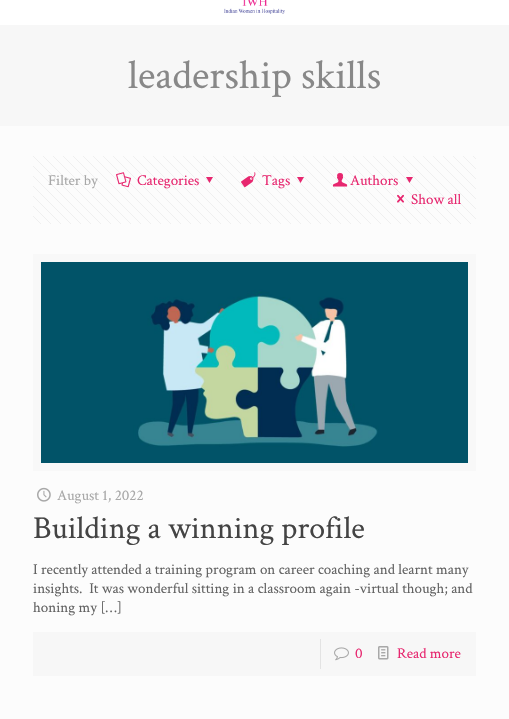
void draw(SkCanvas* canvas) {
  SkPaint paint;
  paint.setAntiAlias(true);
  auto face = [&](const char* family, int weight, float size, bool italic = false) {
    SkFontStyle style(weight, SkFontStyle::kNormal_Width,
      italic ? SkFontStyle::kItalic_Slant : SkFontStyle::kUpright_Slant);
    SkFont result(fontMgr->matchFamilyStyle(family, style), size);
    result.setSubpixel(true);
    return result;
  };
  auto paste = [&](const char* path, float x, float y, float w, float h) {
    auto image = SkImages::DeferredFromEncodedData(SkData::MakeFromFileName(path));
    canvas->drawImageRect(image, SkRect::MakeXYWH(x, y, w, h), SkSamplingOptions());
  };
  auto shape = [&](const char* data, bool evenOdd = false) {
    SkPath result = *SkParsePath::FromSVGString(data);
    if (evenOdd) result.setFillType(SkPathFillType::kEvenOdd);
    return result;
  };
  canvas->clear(0xfffcfcfc);
  paint.setColor(0xffffffff);
  canvas->drawRect(SkRect::MakeXYWH(0, 0, 509, 25), paint);
  paste("img/1.png", 224, 0, 61, 14);
  paint.setColor(0xfff7f7f7);
  canvas->drawRect(SkRect::MakeXYWH(0, 25, 509, 101), paint);
  paste("img/2.png", 33, 156, 443, 68);
  paste("img/3.png", 116, 172, 15, 16);
  paint.setColor(0xffe7276f);
  canvas->drawPath(shape("M213 177L209.5 183L206 177Z"), paint);
  paste("img/4.png", 241, 172, 15, 16);
  canvas->drawPath(shape("M304 177L300.5 183L297 177Z"), paint);
  paste("img/5.png", 333, 173, 15, 14);
  canvas->drawPath(shape("M413 177L409.5 183L406 177Z"), paint);
  paste("img/6.png", 397, 194, 7, 9);
  paint.setStroke(true);
  paint.setStrokeWidth(8);
  paint.setColor(0xfff8f8f8);
  canvas->drawRect(SkRect::MakeXYWH(37, 258, 435, 209), paint);
  paste("img/7.png", 41, 262, 427, 201);
  paste("img/8.png", 37, 487, 14, 15);
  paint.setStroke(false);
  paint.setColor(0xfff7f7f7);
  canvas->drawRect(SkRect::MakeXYWH(33, 632, 443, 44), paint);
  paint.setColor(0xffe3e3e3);
  canvas->drawRect(SkRect::MakeXYWH(320, 639, 1, 30), paint);
  paste("img/9.png", 334, 647, 15, 14);
  paste("img/10.png", 378, 646, 11, 14);
  auto f0 = face("Crimson Text", 400, 41);
  paint.setColor(0xff888888);
  canvas->drawString("leadership skills", 128, 88, f0, paint);
  auto f1 = face("Crimson Text", 400, 15);
  paint.setColor(0xffa8a8a8);
  canvas->drawString("Filter by", 48, 185, f1, paint);
  paint.setColor(0xffe7276f);
  {
    const struct { const char* s; float x, y; } items[] = {
      {"Categories", 137, 185},
      {"Tags", 262, 185},
      {"Authors", 350, 185},
      {"Show all", 411, 204},
    };
    for (auto [s, x, y] : items) {
      canvas->drawString(s, x, y, f1, paint);
    }
  }
  paint.setColor(0xffa8a8a8);
  canvas->drawString("August 1, 2022", 57, 500, f1, paint);
  auto f2 = face("Crimson Text", 400, 32);
  paint.setColor(0xff444444);
  canvas->drawString("Building a winning profile", 33, 538, f2, paint);
  paint.setColor(0xff626262);
  {
    const struct { const char* s; float x, y; } items[] = {
      {"I recently attended a training program on career coaching and learnt many", 33, 574},
      {"insights.  It was wonderful sitting in a classroom again -virtual though; and", 33, 593},
      {"honing my […]", 33, 612},
    };
    for (auto [s, x, y] : items) {
      canvas->drawString(s, x, y, f1, paint);
    }
  }
  paint.setColor(0xffe7276f);
  canvas->drawString("0", 355, 658, f1, paint);
  canvas->drawString("Read more", 397, 658, f1, paint);
}
